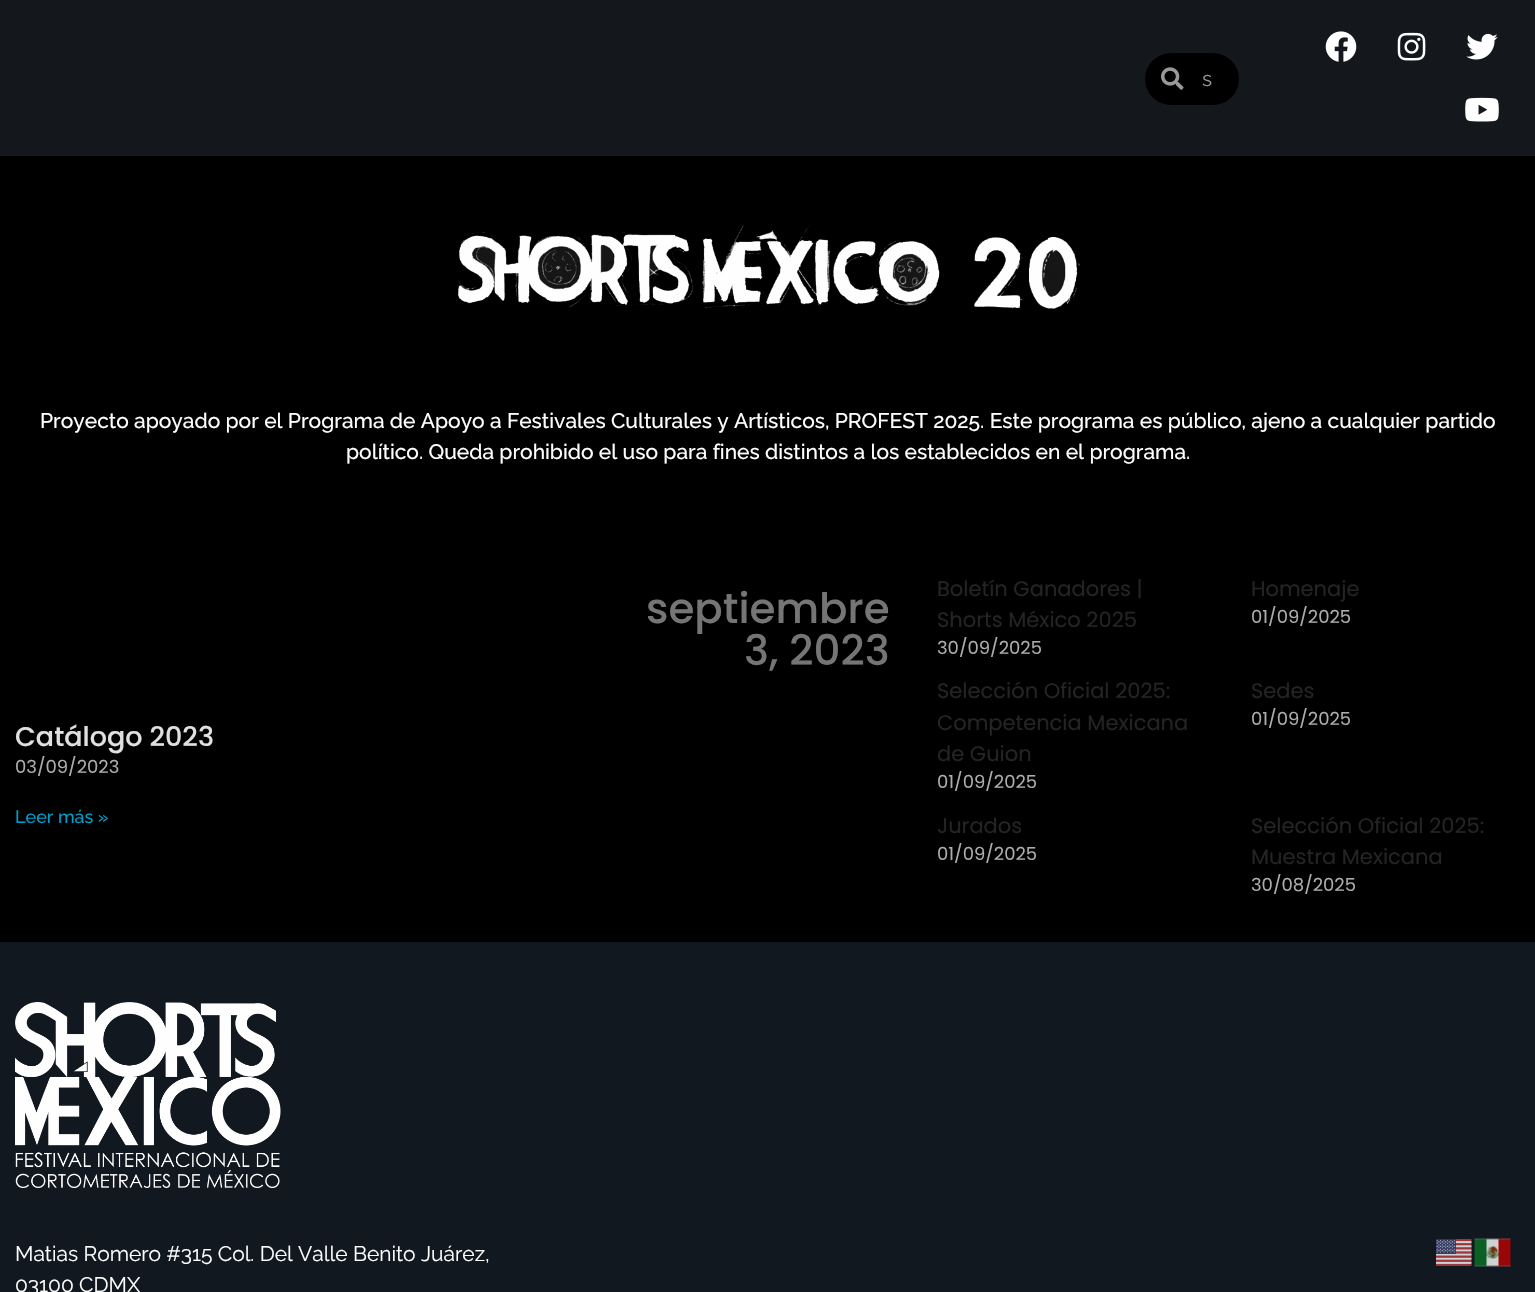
void draw(SkCanvas* canvas) {
  SkPaint paint;
  paint.setAntiAlias(true);
  auto face = [&](const char* family, int weight, float size, bool italic = false) {
    SkFontStyle style(weight, SkFontStyle::kNormal_Width,
      italic ? SkFontStyle::kItalic_Slant : SkFontStyle::kUpright_Slant);
    SkFont result(fontMgr->matchFamilyStyle(family, style), size);
    result.setSubpixel(true);
    return result;
  };
  auto paste = [&](const char* path, float x, float y, float w, float h) {
    auto image = SkImages::DeferredFromEncodedData(SkData::MakeFromFileName(path));
    canvas->drawImageRect(image, SkRect::MakeXYWH(x, y, w, h), SkSamplingOptions());
  };
  canvas->clear(0xff000000);
  paint.setColor(0xff14181c);
  canvas->drawRect(SkRect::MakeXYWH(0, 0, 1535, 156), paint);
  paint.setColor(0xff000000);
  canvas->drawRoundRect(SkRect::MakeXYWH(1145, 53, 94, 52), 26, 26, paint);
  paste("img/1.png", 1161, 67, 23, 23);
  paste("img/2.png", 1325, 31, 32, 31);
  paste("img/3.png", 1397, 32, 29, 29);
  paste("img/4.png", 1466, 33, 32, 27);
  paste("img/5.png", 1465, 97, 34, 25);
  paste("img/6.png", 456, 225, 624, 84);
  paint.setColor(0xff121820);
  canvas->drawRect(SkRect::MakeXYWH(0, 942, 1535, 350), paint);
  paste("img/7.png", 15, 1002, 266, 186);
  paste("img/8.png", 1436, 1239, 36, 27);
  paste("img/9.png", 1474, 1238, 37, 29);
  auto f0 = face("Raleway", 400, 21);
  paint.setColor(0xff999999);
  canvas->drawString("s", 1202, 86, f0, paint);
  auto f1 = face("Raleway", 500, 21);
  paint.setColor(0xffffffff);
  canvas->drawString("Proyecto apoyado por el Programa de Apoyo a Festivales Culturales y Artísticos, PROFEST 2025. Este programa es público, ajeno a cualquier partido", 40, 428, f1, paint);
  canvas->drawString("político. Queda prohibido el uso para fines distintos a los establecidos en el programa.", 346, 459, f1, paint);
  auto f2 = face("Poppins", 500, 42);
  paint.setColor(0xff757575);
  canvas->drawString("septiembre", 646, 623, f2, paint);
  canvas->drawString("3, 2023", 744, 665, f2, paint);
  auto f3 = face("Poppins", 500, 27);
  paint.setColor(0xffe0e0e0);
  canvas->drawString("Catálogo 2023", 15, 746, f3, paint);
  auto f4 = face("Poppins", 400, 18);
  paint.setColor(0xffadadad);
  canvas->drawString("03/09/2023", 15, 773, f4, paint);
  auto f5 = face("Raleway", 500, 18);
  paint.setColor(0xff009ecd);
  canvas->drawString("Leer más »", 15, 823, f5, paint);
  auto f6 = face("Poppins", 400, 21);
  paint.setColor(0xff242424);
  canvas->drawString("Boletín Ganadores |", 937, 596, f6, paint);
  canvas->drawString("Shorts México 2025", 937, 627, f6, paint);
  paint.setColor(0xffadadad);
  canvas->drawString("30/09/2025", 937, 654, f4, paint);
  paint.setColor(0xff242424);
  canvas->drawString("Homenaje", 1251, 596, f6, paint);
  paint.setColor(0xffadadad);
  canvas->drawString("01/09/2025", 1251, 623, f4, paint);
  paint.setColor(0xff242424);
  {
    const struct { const char* s; float x, y; } items[] = {
      {"Selección Oficial 2025:", 937, 698},
      {"Competencia Mexicana", 937, 730},
      {"de Guion", 937, 761},
    };
    for (auto [s, x, y] : items) {
      canvas->drawString(s, x, y, f6, paint);
    }
  }
  paint.setColor(0xffadadad);
  canvas->drawString("01/09/2025", 937, 788, f4, paint);
  paint.setColor(0xff242424);
  canvas->drawString("Sedes", 1251, 698, f6, paint);
  paint.setColor(0xffadadad);
  canvas->drawString("01/09/2025", 1251, 725, f4, paint);
  paint.setColor(0xff242424);
  canvas->drawString("Jurados", 937, 833, f6, paint);
  paint.setColor(0xffadadad);
  canvas->drawString("01/09/2025", 937, 860, f4, paint);
  paint.setColor(0xff242424);
  canvas->drawString("Selección Oficial 2025:", 1251, 833, f6, paint);
  canvas->drawString("Muestra Mexicana", 1251, 864, f6, paint);
  paint.setColor(0xffadadad);
  canvas->drawString("30/08/2025", 1251, 891, f4, paint);
  paint.setColor(0xffffffff);
  canvas->drawString("Matias Romero #315 Col. Del Valle Benito Juárez,", 15, 1261, f0, paint);
  canvas->drawString("03100 CDMX", 15, 1292, f0, paint);
}
